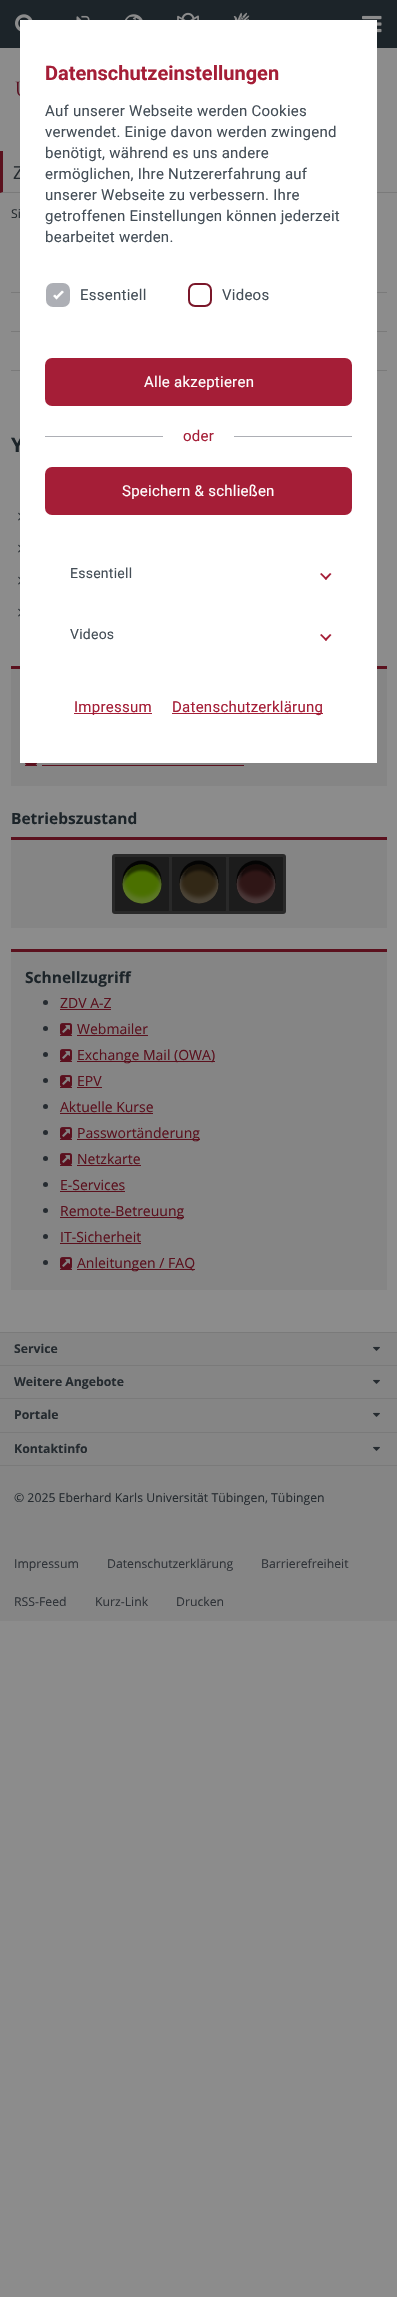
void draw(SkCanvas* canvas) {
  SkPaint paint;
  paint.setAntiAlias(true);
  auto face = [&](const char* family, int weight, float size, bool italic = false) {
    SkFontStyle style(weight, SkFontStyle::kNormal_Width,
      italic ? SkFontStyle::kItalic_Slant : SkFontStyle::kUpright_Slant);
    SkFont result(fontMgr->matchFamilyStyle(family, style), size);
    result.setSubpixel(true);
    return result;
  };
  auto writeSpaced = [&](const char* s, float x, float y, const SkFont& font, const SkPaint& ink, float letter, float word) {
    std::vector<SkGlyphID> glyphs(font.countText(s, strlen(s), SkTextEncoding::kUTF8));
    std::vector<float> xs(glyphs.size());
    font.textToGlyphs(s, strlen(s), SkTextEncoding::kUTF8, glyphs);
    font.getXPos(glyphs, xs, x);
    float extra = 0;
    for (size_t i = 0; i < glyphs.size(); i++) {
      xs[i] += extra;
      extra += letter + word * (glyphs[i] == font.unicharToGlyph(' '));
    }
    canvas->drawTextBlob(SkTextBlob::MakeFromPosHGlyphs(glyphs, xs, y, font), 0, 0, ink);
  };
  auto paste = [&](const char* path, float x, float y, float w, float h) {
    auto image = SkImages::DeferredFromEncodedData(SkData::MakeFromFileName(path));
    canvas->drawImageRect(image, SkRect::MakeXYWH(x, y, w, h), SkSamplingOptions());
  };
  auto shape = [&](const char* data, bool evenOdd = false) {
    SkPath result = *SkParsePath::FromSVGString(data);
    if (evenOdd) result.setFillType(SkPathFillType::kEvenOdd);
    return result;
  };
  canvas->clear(0xff8c8c8c);
  paint.setColor(0xff1c2429);
  canvas->drawRect(SkRect::MakeXYWH(0, 0, 397, 48), paint);
  paste("img/1.png", 15, 14, 18, 18);
  paste("img/2.png", 76, 15, 14, 5);
  paste("img/3.png", 125, 14, 18, 6);
  paste("img/4.png", 177, 12, 22, 8);
  paste("img/5.png", 233, 12, 17, 8);
  paste("img/6.png", 362, 15, 20, 18);
  paste("img/7.png", 15, 81, 5, 15);
  paint.setColor(0xff7a7a7a);
  canvas->drawPath(shape("M397 193H0L3 192H397Z"), paint);
  paint.setColor(0xff5b111e);
  canvas->drawPath(shape("M0 193V151H3V192Z"), paint);
  {
    const struct { float x, y, w, h; SkColor color; } items[] = {
      {11, 292, 376, 1, 0xff7a7a7a},
      {11, 331, 376, 1, 0xff7a7a7a},
      {11, 370, 376, 1, 0xff7a7a7a},
    };
    for (auto [x, y, w, h, color] : items) {
      paint.setColor(color);
      canvas->drawRect(SkRect::MakeXYWH(x, y, w, h), paint);
    }
  }
  paste("img/8.png", 18, 512, 2, 9);
  paste("img/8.png", 18, 544, 2, 9);
  paste("img/8.png", 18, 576, 2, 9);
  paste("img/8.png", 18, 608, 2, 9);
  paint.setColor(0xff858585);
  canvas->drawRect(SkRect::MakeXYWH(11, 669, 376, 117), paint);
  paint.setColor(0xff5b111e);
  canvas->drawRect(SkRect::MakeXYWH(11, 666, 376, 3), paint);
  paste("img/9.png", 25, 763, 12, 2);
  {
    const struct { float x, y, w, h; SkColor color; } items[] = {
      {25, 765, 12, 1, 0xff5b111e},
      {42, 765, 202, 1, 0xff5b111e},
      {11, 840, 376, 88, 0xff858585},
      {11, 837, 376, 3, 0xff5b111e},
    };
    for (auto [x, y, w, h, color] : items) {
      paint.setColor(color);
      canvas->drawRect(SkRect::MakeXYWH(x, y, w, h), paint);
    }
  }
  paste("img/10.png", 112, 854, 174, 60);
  paint.setColor(0xff858585);
  canvas->drawRect(SkRect::MakeXYWH(11, 952, 376, 338), paint);
  paint.setColor(0xff5b111e);
  canvas->drawRect(SkRect::MakeXYWH(11, 949, 376, 3), paint);
  paint.setColor(0xff252b30);
  canvas->drawCircle(45.5f, 1002.5f, 2.5f, paint);
  paint.setColor(0xff5b111e);
  canvas->drawRect(SkRect::MakeXYWH(60, 1009, 51, 1), paint);
  paint.setColor(0xff252b30);
  canvas->drawCircle(45.5f, 1028.5f, 2.5f, paint);
  paste("img/11.png", 60, 1023, 12, 12);
  paint.setColor(0xff5b111e);
  canvas->drawRect(SkRect::MakeXYWH(77, 1035, 71, 1), paint);
  canvas->drawRect(SkRect::MakeXYWH(60, 1035, 12, 1), paint);
  paint.setColor(0xff252b30);
  canvas->drawCircle(45.5f, 1054.5f, 2.5f, paint);
  paste("img/11.png", 60, 1049, 12, 12);
  paint.setColor(0xff5b111e);
  canvas->drawRect(SkRect::MakeXYWH(77, 1061, 138, 1), paint);
  canvas->drawRect(SkRect::MakeXYWH(60, 1061, 12, 1), paint);
  paint.setColor(0xff252b30);
  canvas->drawCircle(45.5f, 1080.5f, 2.5f, paint);
  paste("img/11.png", 60, 1075, 12, 12);
  paint.setColor(0xff5b111e);
  canvas->drawRect(SkRect::MakeXYWH(77, 1087, 25, 1), paint);
  canvas->drawRect(SkRect::MakeXYWH(60, 1087, 12, 1), paint);
  paint.setColor(0xff252b30);
  canvas->drawCircle(45.5f, 1106.5f, 2.5f, paint);
  paint.setColor(0xff5b111e);
  canvas->drawRect(SkRect::MakeXYWH(60, 1113, 93, 1), paint);
  paint.setColor(0xff252b30);
  canvas->drawCircle(45.5f, 1132.5f, 2.5f, paint);
  paste("img/11.png", 60, 1127, 12, 12);
  paint.setColor(0xff5b111e);
  canvas->drawRect(SkRect::MakeXYWH(77, 1139, 123, 1), paint);
  canvas->drawRect(SkRect::MakeXYWH(60, 1139, 12, 1), paint);
  paint.setColor(0xff252b30);
  canvas->drawCircle(45.5f, 1158.5f, 2.5f, paint);
  paste("img/11.png", 60, 1153, 12, 12);
  paint.setColor(0xff5b111e);
  canvas->drawRect(SkRect::MakeXYWH(77, 1165, 64, 1), paint);
  canvas->drawRect(SkRect::MakeXYWH(60, 1165, 12, 1), paint);
  paint.setColor(0xff252b30);
  canvas->drawCircle(45.5f, 1184.5f, 2.5f, paint);
  paint.setColor(0xff5b111e);
  canvas->drawRect(SkRect::MakeXYWH(60, 1191, 65, 1), paint);
  paint.setColor(0xff252b30);
  canvas->drawCircle(45.5f, 1210.5f, 2.5f, paint);
  paint.setColor(0xff5b111e);
  canvas->drawRect(SkRect::MakeXYWH(60, 1217, 124, 1), paint);
  paint.setColor(0xff252b30);
  canvas->drawCircle(45.5f, 1236.5f, 2.5f, paint);
  paint.setColor(0xff5b111e);
  canvas->drawRect(SkRect::MakeXYWH(60, 1243, 81, 1), paint);
  paint.setColor(0xff252b30);
  canvas->drawCircle(45.5f, 1262.5f, 2.5f, paint);
  paste("img/11.png", 60, 1257, 12, 12);
  {
    const struct { float x, y, w, h; SkColor color; } items[] = {
      {77, 1269, 118, 1, 0xff5b111e},
      {60, 1269, 12, 1, 0xff5b111e},
      {0, 1333, 397, 288, 0xff858585},
      {0, 1332, 397, 1, 0xff7a7a7a},
      {0, 1365, 397, 1, 0xff7a7a7a},
    };
    for (auto [x, y, w, h, color] : items) {
      paint.setColor(color);
      canvas->drawRect(SkRect::MakeXYWH(x, y, w, h), paint);
    }
  }
  paste("img/12.png", 373, 1346, 7, 5);
  canvas->drawRect(SkRect::MakeXYWH(0, 1398, 397, 1), paint);
  paste("img/12.png", 373, 1379, 7, 5);
  canvas->drawRect(SkRect::MakeXYWH(0, 1432, 397, 1), paint);
  paste("img/12.png", 373, 1412, 7, 5);
  canvas->drawRect(SkRect::MakeXYWH(0, 1465, 397, 1), paint);
  paste("img/12.png", 373, 1446, 7, 5);
  auto f0 = face("Open Sans", 400, 18);
  paint.setColor(0xff252b30);
  canvas->drawString("Z", 13, 179, f0, paint);
  auto f1 = face("Open Sans", 400, 12.25f);
  canvas->drawString("Si", 11, 218, f1, paint);
  auto f2 = face("Open Sans", 700, 20);
  paint.setColor(0xff1c2429);
  canvas->drawString("Y", 11, 452, f2, paint);
  paint.setColor(0xffffffff);
  canvas->drawRect(SkRect::MakeXYWH(20, 20, 357, 743), paint);
  paint.setColor(0xffa51e37);
  canvas->drawPath(shape("M330 634L331.5 635L326 641L324.5 639.5Z"), paint);
  canvas->drawPath(shape("M321.5 634L327 639.5L326 641L320 635Z"), paint);
  auto f3 = face("Roboto", 400, 14);
  paint.setColor(0xff444e57);
  writeSpaced("Videos", 70, 639, f3, paint, 0.25f, 0);
  paint.setColor(0xffa51e37);
  canvas->drawPath(shape("M330 573L331.5 574L326 580L324.5 578.5Z"), paint);
  canvas->drawPath(shape("M321.5 573L327 578.5L326 580L320 574Z"), paint);
  paint.setColor(0xff444e57);
  writeSpaced("Essentiell", 70, 578, f3, paint, 0.25f, 0);
  auto f4 = face("Roboto", 400, 15);
  writeSpaced("Videos", 222, 300, f4, paint, 0.25f, 0);
  paint.setStroke(true);
  paint.setStrokeWidth(2);
  paint.setColor(0xff7a1629);
  canvas->drawRoundRect(SkRect::MakeXYWH(189, 284, 22, 22), 6, 6, paint);
  paint.setStroke(false);
  paint.setColor(0xffadafb5);
  canvas->drawRoundRect(SkRect::MakeXYWH(47, 284, 22, 22), 6, 6, paint);
  paint.setStroke(true);
  canvas->drawRoundRect(SkRect::MakeXYWH(47, 284, 22, 22), 6, 6, paint);
  paint.setStroke(false);
  paint.setColor(0xffffffff);
  canvas->drawPath(shape("M55 297.5L62 290.5L64 292L56.5 299.5Z"), paint);
  canvas->drawPath(shape("M53 296L55 294.5L58 297.5L56.5 299.5Z"), paint);
  paint.setColor(0xff444e57);
  writeSpaced("Essentiell", 80, 300, f4, paint, 0.25f, 0);
  paint.setColor(0xffa51e37);
  canvas->drawRect(SkRect::MakeXYWH(172, 713, 151, 1), paint);
  writeSpaced("Datenschutzerklärung", 172, 712, f4, paint, 0.25f, 0);
  canvas->drawRect(SkRect::MakeXYWH(74, 713, 78, 1), paint);
  writeSpaced("Impressum", 74, 712, f4, paint, 0.25f, 0);
  canvas->drawRoundRect(SkRect::MakeXYWH(45, 467, 307, 48), 7, 7, paint);
  paint.setColor(0xffffffff);
  writeSpaced("Speichern & schließen", 122, 496, f4, paint, 0.25f, 0);
  paint.setColor(0xffadafb5);
  canvas->drawRect(SkRect::MakeXYWH(234, 436, 118, 1), paint);
  paint.setColor(0xffa51e37);
  writeSpaced("oder", 183, 441, f4, paint, 0.25f, 0);
  paint.setColor(0xffadafb5);
  canvas->drawRect(SkRect::MakeXYWH(45, 436, 118, 1), paint);
  paint.setColor(0xffa51e37);
  canvas->drawRoundRect(SkRect::MakeXYWH(45, 358, 307, 48), 7, 7, paint);
  paint.setColor(0xffffffff);
  writeSpaced("Alle akzeptieren", 144, 387, f4, paint, 0.25f, 0);
  paint.setColor(0xff444e57);
  {
    const struct { const char* s; float x, y; } items[] = {
      {"bearbeitet werden.", 45, 242},
      {"getroffenen Einstellungen können jederzeit", 45, 221},
      {"unserer Webseite zu verbessern. Ihre", 45, 200},
      {"ermöglichen, Ihre Nutzererfahrung auf", 45, 179},
      {"benötigt, während es uns andere", 45, 158},
      {"verwendet. Einige davon werden zwingend", 45, 137},
      {"Auf unserer Webseite werden Cookies", 45, 116},
    };
    for (auto [s, x, y] : items) {
      writeSpaced(s, x, y, f4, paint, 0.25f, 0);
    }
  }
  auto f5 = face("Roboto", 700, 20);
  paint.setColor(0xffa51e37);
  canvas->drawString("Datenschutzeinstellungen", 45, 80, f5, paint);
  auto f6 = face("Open Sans", 700, 15.5f);
  paint.setColor(0xff1c2429);
  canvas->drawString("Betriebszustand", 11, 824, f6, paint);
  canvas->drawString("Schnellzugriff", 25, 983, f6, paint);
  auto f7 = face("Open Sans", 400, 14);
  paint.setColor(0xff5b111e);
  {
    const struct { const char* s; float x, y; } items[] = {
      {"ZDV A-Z", 60, 1008},
      {"Webmailer", 77, 1034},
      {"Exchange Mail (OWA)", 77, 1060},
      {"EPV", 77, 1086},
      {"Aktuelle Kurse", 60, 1112},
      {"Passwortänderung", 77, 1138},
      {"Netzkarte", 77, 1164},
      {"E-Services", 60, 1190},
      {"Remote-Betreuung", 60, 1216},
      {"IT-Sicherheit", 60, 1242},
      {"Anleitungen / FAQ", 77, 1268},
    };
    for (auto [s, x, y] : items) {
      canvas->drawString(s, x, y, f7, paint);
    }
  }
  auto f8 = face("Open Sans", 700, 12.25f);
  paint.setColor(0xff252b30);
  {
    const struct { const char* s; float x, y; } items[] = {
      {"Service", 14, 1353},
      {"Weitere Angebote", 14, 1386},
      {"Portale", 14, 1419},
      {"Kontaktinfo", 14, 1453},
    };
    for (auto [s, x, y] : items) {
      canvas->drawString(s, x, y, f8, paint);
    }
  }
  canvas->drawString("© 2025 Eberhard Karls Universität Tübingen, Tübingen", 14, 1502, f1, paint);
  paint.setColor(0xff2f3338);
  {
    const struct { const char* s; float x, y; } items[] = {
      {"Impressum", 14, 1568},
      {"Datenschutzerklärung", 107, 1568},
      {"Barrierefreiheit", 261, 1568},
      {"RSS-Feed", 14, 1606},
      {"Kurz-Link", 95, 1606},
      {"Drucken", 176, 1606},
    };
    for (auto [s, x, y] : items) {
      canvas->drawString(s, x, y, f1, paint);
    }
  }
}
